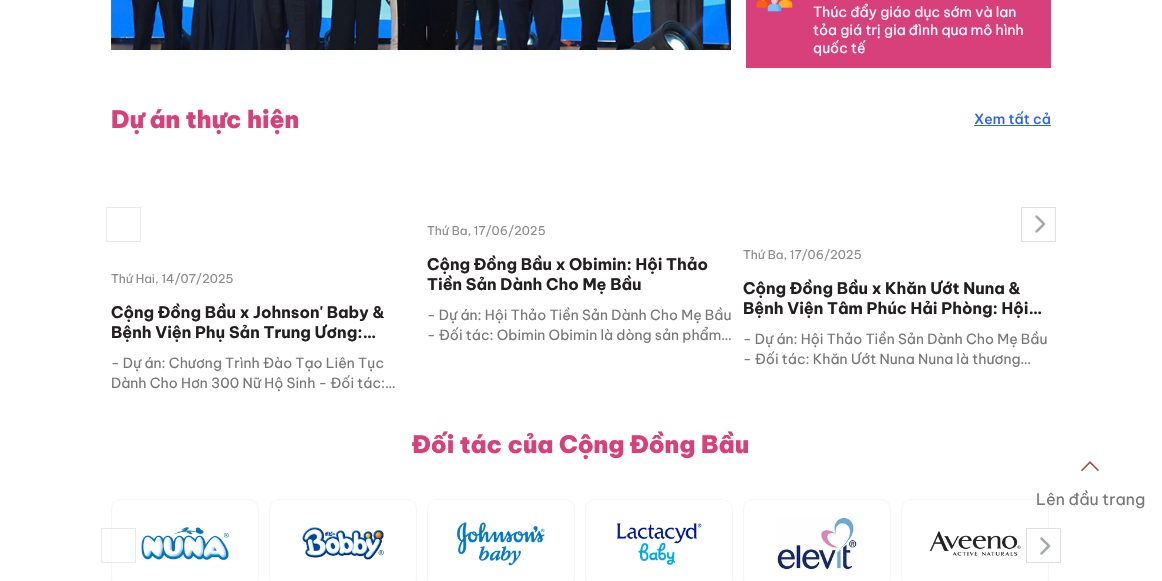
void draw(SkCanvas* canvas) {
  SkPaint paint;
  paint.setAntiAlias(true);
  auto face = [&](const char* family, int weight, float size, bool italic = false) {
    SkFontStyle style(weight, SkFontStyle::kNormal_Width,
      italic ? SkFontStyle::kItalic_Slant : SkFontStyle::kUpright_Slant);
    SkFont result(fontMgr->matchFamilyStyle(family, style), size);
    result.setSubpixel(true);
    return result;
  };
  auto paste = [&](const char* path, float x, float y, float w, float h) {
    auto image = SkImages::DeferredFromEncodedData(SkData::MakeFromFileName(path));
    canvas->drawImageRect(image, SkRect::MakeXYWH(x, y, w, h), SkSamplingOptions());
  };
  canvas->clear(0xffffffff);
  paste("img/1.png", 111, 0, 620, 50);
  paint.setColor(0xffd7407a);
  canvas->drawRect(SkRect::MakeXYWH(746, 0, 305, 68), paint);
  paste("img/2.png", 756, 0, 37, 12);
  paint.setColor(0xff2d64e6);
  canvas->drawRect(SkRect::MakeXYWH(974, 125, 77, 1), paint);
  paint.setStroke(true);
  paint.setStrokeWidth(1);
  paint.setColor(0xffe9e9e9);
  canvas->drawRect(SkRect::MakeXYWH(106.5f, 207.5f, 34, 34), paint);
  paint.setColor(0xffe0e0e0);
  canvas->drawRect(SkRect::MakeXYWH(1021.5f, 207.5f, 34, 34), paint);
  paste("img/3.png", 1035, 215, 11, 18);
  paint.setColor(0xfff5f6f8);
  canvas->drawRoundRect(SkRect::MakeXYWH(111.5f, 499.5f, 147, 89), 9.5f, 9.5f, paint);
  paste("img/4.png", 141, 527, 88, 33);
  canvas->drawRoundRect(SkRect::MakeXYWH(269.5f, 499.5f, 147, 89), 9.5f, 9.5f, paint);
  paste("img/5.png", 301, 527, 83, 34);
  canvas->drawRoundRect(SkRect::MakeXYWH(427.5f, 499.5f, 147, 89), 9.5f, 9.5f, paint);
  paste("img/6.png", 457, 522, 88, 44);
  canvas->drawRoundRect(SkRect::MakeXYWH(585.5f, 499.5f, 147, 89), 9.5f, 9.5f, paint);
  paste("img/7.png", 616, 523, 86, 42);
  canvas->drawRoundRect(SkRect::MakeXYWH(743.5f, 499.5f, 147, 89), 9.5f, 9.5f, paint);
  paste("img/8.png", 776, 517, 83, 53);
  canvas->drawRoundRect(SkRect::MakeXYWH(901.5f, 499.5f, 147, 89), 9.5f, 9.5f, paint);
  paste("img/9.png", 929, 531, 92, 25);
  paint.setStroke(false);
  paint.setColor(0xb3ffffff);
  canvas->drawRect(SkRect::MakeXYWH(111, 528, 1, 35), paint);
  paint.setStroke(true);
  paint.setColor(0xb3e0e0e0);
  canvas->drawRect(SkRect::MakeXYWH(101.5f, 528.5f, 34, 34), paint);
  paint.setStroke(false);
  paint.setColor(0xffffffff);
  canvas->drawRect(SkRect::MakeXYWH(1048, 529, 1, 33), paint);
  paint.setStroke(true);
  paint.setColor(0xffe0e0e0);
  canvas->drawRect(SkRect::MakeXYWH(1026.5f, 528.5f, 34, 34), paint);
  paste("img/3.png", 1040, 537, 11, 18);
  paste("img/10.png", 1081, 461, 18, 11);
  auto f0 = face("Be Vietnam Pro", 400, 14);
  paint.setStroke(false);
  paint.setColor(0xffffffff);
  {
    const struct { const char* s; float x, y; } items[] = {
      {"Thúc đẩy giáo dục sớm và lan", 813, 17},
      {"tỏa giá trị gia đình qua mô hình", 813, 35},
      {"quốc tế", 813, 53},
    };
    for (auto [s, x, y] : items) {
      canvas->drawString(s, x, y, f0, paint);
    }
  }
  auto f1 = face("Be Vietnam Pro", 900, 24);
  paint.setColor(0xffd7407a);
  canvas->drawString("Dự án thực hiện", 111, 128, f1, paint);
  auto f2 = face("Be Vietnam Pro", 500, 14);
  paint.setColor(0xff2d64e6);
  canvas->drawString("Xem tất cả", 974, 124, f2, paint);
  auto f3 = face("Be Vietnam Pro", 400, 12);
  paint.setColor(0xff8c8c8c);
  canvas->drawString("Thứ Hai, 14/07/2025", 111, 283, f3, paint);
  auto f4 = face("Be Vietnam Pro", 700, 16);
  paint.setColor(0xff231f20);
  canvas->drawString("Cộng Đồng Bầu x Johnson' Baby &", 111, 318, f4, paint);
  canvas->drawString("Bệnh Viện Phụ Sản Trung Ương:…", 111, 338, f4, paint);
  paint.setColor(0xff777777);
  canvas->drawString("- Dự án: Chương Trình Đào Tạo Liên Tục", 111, 368, f0, paint);
  canvas->drawString("Dành Cho Hơn 300 Nữ Hộ Sinh - Đối tác:…", 111, 388, f0, paint);
  paint.setColor(0xff8c8c8c);
  canvas->drawString("Thứ Ba, 17/06/2025", 427, 235, f3, paint);
  paint.setColor(0xff231f20);
  canvas->drawString("Cộng Đồng Bầu x Obimin: Hội Thảo", 427, 270, f4, paint);
  canvas->drawString("Tiền Sản Dành Cho Mẹ Bầu", 427, 290, f4, paint);
  paint.setColor(0xff777777);
  canvas->drawString("- Dự án: Hội Thảo Tiền Sản Dành Cho Mẹ Bầu", 427, 320, f0, paint);
  canvas->drawString("- Đối tác: Obimin Obimin là dòng sản phẩm…", 427, 340, f0, paint);
  paint.setColor(0xff8c8c8c);
  canvas->drawString("Thứ Ba, 17/06/2025", 743, 259, f3, paint);
  paint.setColor(0xff231f20);
  canvas->drawString("Cộng Đồng Bầu x Khăn Ướt Nuna &", 743, 294, f4, paint);
  canvas->drawString("Bệnh Viện Tâm Phúc Hải Phòng: Hội…", 743, 314, f4, paint);
  paint.setColor(0xff777777);
  canvas->drawString("- Dự án: Hội Thảo Tiền Sản Dành Cho Mẹ Bầu", 743, 344, f0, paint);
  canvas->drawString("- Đối tác: Khăn Ướt Nuna Nuna là thương…", 743, 364, f0, paint);
  paint.setColor(0xffd7407a);
  canvas->drawString("Đối tác của Cộng Đồng Bầu", 412, 453, f1, paint);
  auto f5 = face("Be Vietnam Pro", 400, 16);
  paint.setColor(0xff777777);
  canvas->drawString("Lên đầu trang", 1036, 505, f5, paint);
}
